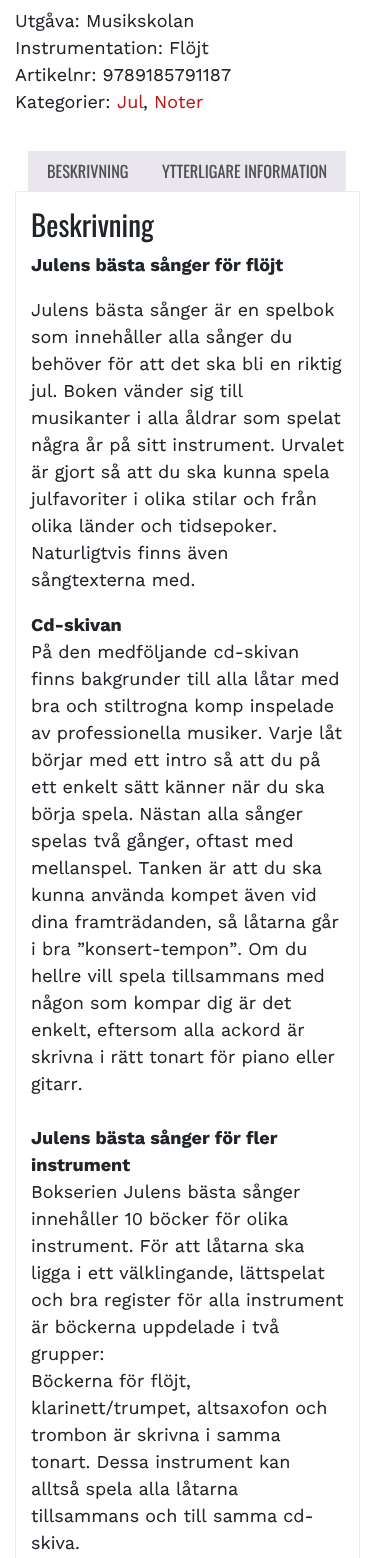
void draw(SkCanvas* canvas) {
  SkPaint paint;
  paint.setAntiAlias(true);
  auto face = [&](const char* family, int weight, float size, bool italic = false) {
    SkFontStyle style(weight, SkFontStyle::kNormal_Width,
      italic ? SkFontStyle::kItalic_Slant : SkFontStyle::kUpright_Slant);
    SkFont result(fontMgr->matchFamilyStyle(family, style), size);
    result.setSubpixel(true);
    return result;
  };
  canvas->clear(0xffffffff);
  {
    const struct { float x, y, w, h; SkColor color; } items[] = {
      {29, 151, 114, 40, 0xffe9e6ed},
      {28, 151, 1, 41, 0xffeaeaea},
      {144, 151, 201, 40, 0xffe9e6ed},
      {345, 151, 1, 41, 0xffeaeaea},
      {143, 151, 1, 41, 0xffeaeaea},
      {15, 191, 345, 1, 0xffeaeaea},
      {359, 192, 1, 1366, 0xffeaeaea},
      {15, 192, 1, 1366, 0xffeaeaea},
    };
    for (auto [x, y, w, h, color] : items) {
      paint.setColor(color);
      canvas->drawRect(SkRect::MakeXYWH(x, y, w, h), paint);
    }
  }
  auto f0 = face("Work Sans", 400, 18);
  paint.setColor(0xff212529);
  {
    const struct { const char* s; float x, y; } items[] = {
      {"Utgåva: Musikskolan", 15, 27},
      {"Instrumentation: Flöjt", 15, 54},
      {"Artikelnr: 9789185791187", 15, 81},
      {"Kategorier:", 15, 108},
    };
    for (auto [s, x, y] : items) {
      canvas->drawString(s, x, y, f0, paint);
    }
  }
  paint.setColor(0xffbd1a1a);
  canvas->drawString("Jul", 117, 108, f0, paint);
  paint.setColor(0xff212529);
  canvas->drawString(",", 143, 108, f0, paint);
  paint.setColor(0xffbd1a1a);
  canvas->drawString("Noter", 154, 108, f0, paint);
  auto f1 = face("Oswald", 400, 16.25f);
  paint.setColor(0xff515151);
  canvas->drawString("BESKRIVNING", 47, 178, f1, paint);
  canvas->drawString("YTTERLIGARE INFORMATION", 162, 178, f1, paint);
  auto f2 = face("Oswald", 400, 29);
  paint.setColor(0xff212529);
  canvas->drawString("Beskrivning", 31, 237, f2, paint);
  auto f3 = face("Work Sans", 700, 18);
  canvas->drawString("Julens bästa sånger för flöjt", 31, 271, f3, paint);
  {
    const struct { const char* s; float x, y; } items[] = {
      {"Julens bästa sånger är en spelbok", 31, 316},
      {"som innehåller alla sånger du", 31, 343},
      {"behöver för att det ska bli en riktig", 31, 370},
      {"jul. Boken vänder sig till", 31, 397},
      {"musikanter i alla åldrar som spelat", 31, 424},
      {"några år på sitt instrument. Urvalet", 31, 451},
      {"är gjort så att du ska kunna spela", 31, 478},
      {"julfavoriter i olika stilar och från", 31, 505},
      {"olika länder och tidsepoker.", 31, 532},
      {"Naturligtvis finns även", 31, 559},
      {"sångtexterna med.", 31, 586},
    };
    for (auto [s, x, y] : items) {
      canvas->drawString(s, x, y, f0, paint);
    }
  }
  canvas->drawString("Cd-skivan", 31, 631, f3, paint);
  {
    const struct { const char* s; float x, y; } items[] = {
      {"På den medföljande cd-skivan", 31, 658},
      {"finns bakgrunder till alla låtar med", 31, 685},
      {"bra och stiltrogna komp inspelade", 31, 712},
      {"av professionella musiker. Varje låt", 31, 739},
      {"börjar med ett intro så att du på", 31, 766},
      {"ett enkelt sätt känner när du ska", 31, 793},
      {"börja spela. Nästan alla sånger", 31, 820},
      {"spelas två gånger, oftast med", 31, 847},
      {"mellanspel. Tanken är att du ska", 31, 874},
      {"kunna använda kompet även vid", 31, 901},
      {"dina framträdanden, så låtarna går", 31, 928},
      {"i bra ”konsert-tempon”. Om du", 31, 955},
      {"hellre vill spela tillsammans med", 31, 982},
      {"någon som kompar dig är det", 31, 1009},
      {"enkelt, eftersom alla ackord är", 31, 1036},
      {"skrivna i rätt tonart för piano eller", 31, 1063},
      {"gitarr.", 31, 1090},
    };
    for (auto [s, x, y] : items) {
      canvas->drawString(s, x, y, f0, paint);
    }
  }
  canvas->drawString("Julens bästa sånger för fler", 31, 1144, f3, paint);
  canvas->drawString("instrument", 31, 1171, f3, paint);
  {
    const struct { const char* s; float x, y; } items[] = {
      {"Bokserien Julens bästa sånger", 31, 1198},
      {"innehåller 10 böcker för olika", 31, 1225},
      {"instrument. För att låtarna ska", 31, 1252},
      {"ligga i ett välklingande, lättspelat", 31, 1279},
      {"och bra register för alla instrument", 31, 1306},
      {"är böckerna uppdelade i två", 31, 1333},
      {"grupper:", 31, 1360},
      {"Böckerna för flöjt,", 31, 1387},
      {"klarinett/trumpet, altsaxofon och", 31, 1414},
      {"trombon är skrivna i samma", 31, 1441},
      {"tonart. Dessa instrument kan", 31, 1468},
      {"alltså spela alla låtarna", 31, 1495},
      {"tillsammans och till samma cd-", 31, 1522},
      {"skiva.", 31, 1549},
    };
    for (auto [s, x, y] : items) {
      canvas->drawString(s, x, y, f0, paint);
    }
  }
}
